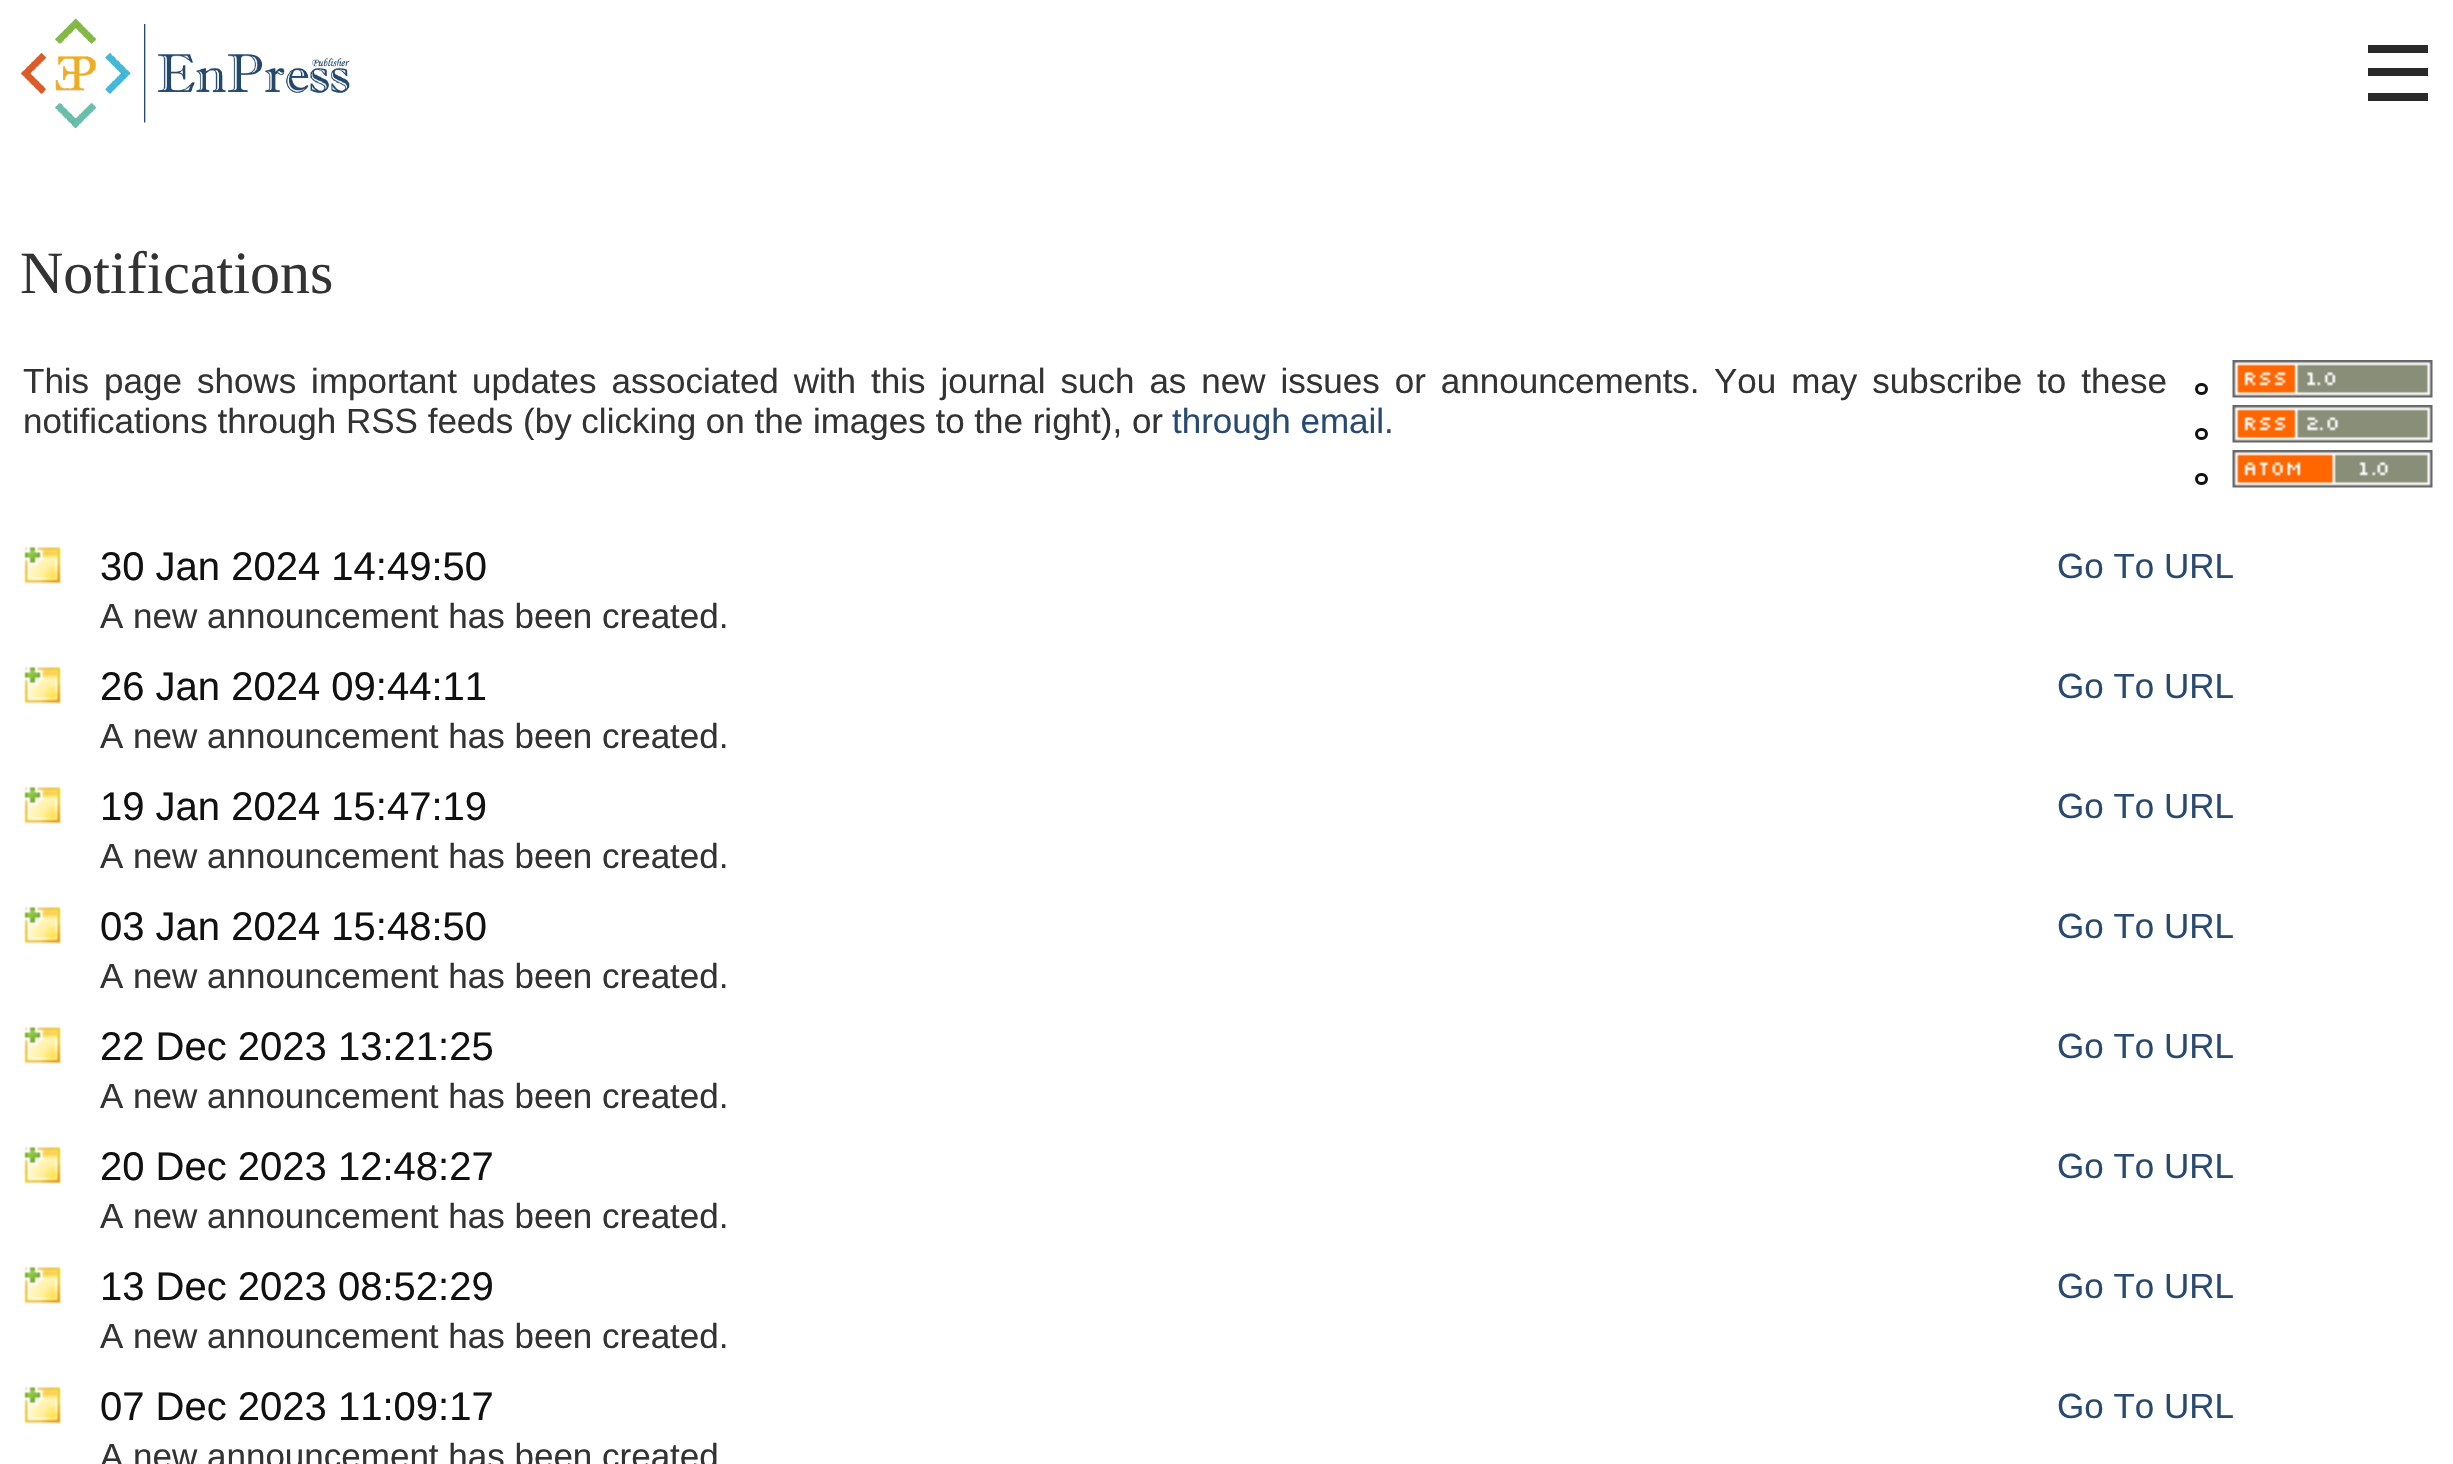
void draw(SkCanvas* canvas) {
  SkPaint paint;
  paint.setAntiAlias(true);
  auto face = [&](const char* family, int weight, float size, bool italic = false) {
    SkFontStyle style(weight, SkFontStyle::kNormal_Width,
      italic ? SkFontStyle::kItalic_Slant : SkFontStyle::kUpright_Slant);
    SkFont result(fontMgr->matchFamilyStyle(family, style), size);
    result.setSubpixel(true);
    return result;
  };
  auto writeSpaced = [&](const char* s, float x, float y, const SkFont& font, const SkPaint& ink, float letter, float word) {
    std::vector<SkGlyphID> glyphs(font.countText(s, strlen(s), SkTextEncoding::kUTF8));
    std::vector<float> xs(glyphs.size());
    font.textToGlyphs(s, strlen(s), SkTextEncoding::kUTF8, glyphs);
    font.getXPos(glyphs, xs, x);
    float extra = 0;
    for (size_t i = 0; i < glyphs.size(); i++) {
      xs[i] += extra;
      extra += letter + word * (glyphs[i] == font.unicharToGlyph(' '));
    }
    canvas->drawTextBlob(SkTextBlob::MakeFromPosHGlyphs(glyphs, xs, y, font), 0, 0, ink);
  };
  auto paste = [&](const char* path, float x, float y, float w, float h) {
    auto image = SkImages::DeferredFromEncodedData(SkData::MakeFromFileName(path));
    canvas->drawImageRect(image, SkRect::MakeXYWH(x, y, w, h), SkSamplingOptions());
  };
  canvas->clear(0xffffffff);
  paste("img/1.png", 20, 18, 330, 110);
  {
    const struct { float x, y, w, h; SkColor color; } items[] = {
      {2368, 93, 60, 8, 0xff292929},
      {2368, 45, 60, 8, 0xff292929},
      {2368, 68, 60, 8, 0xff292929},
    };
    for (auto [x, y, w, h, color] : items) {
      paint.setColor(color);
      canvas->drawRect(SkRect::MakeXYWH(x, y, w, h), paint);
    }
  }
  paint.setStroke(true);
  paint.setStrokeWidth(3);
  paint.setColor(0xff111111);
  canvas->drawRoundRect(SkRect::MakeXYWH(2196.5f, 384.5f, 10, 9), 4.5f, 4.5f, paint);
  paste("img/2.png", 2232, 360, 201, 38);
  canvas->drawRoundRect(SkRect::MakeXYWH(2196.5f, 429.5f, 10, 9), 4.5f, 4.5f, paint);
  paste("img/3.png", 2232, 405, 201, 38);
  canvas->drawRoundRect(SkRect::MakeXYWH(2196.5f, 474.5f, 10, 9), 4.5f, 4.5f, paint);
  paste("img/4.png", 2232, 450, 201, 38);
  paste("img/5.png", 24, 546, 37, 38);
  paste("img/5.png", 24, 666, 37, 38);
  paste("img/5.png", 24, 786, 37, 38);
  paste("img/5.png", 24, 906, 37, 38);
  paste("img/6.png", 24, 1026, 37, 38);
  paste("img/7.png", 24, 1146, 37, 38);
  paste("img/5.png", 24, 1266, 37, 38);
  paste("img/5.png", 24, 1386, 37, 38);
  auto f0 = face("Liberation Serif", 400, 60);
  paint.setStroke(false);
  paint.setColor(0xff333333);
  canvas->drawString("Notifications", 20, 293, f0, paint);
  auto f1 = face("Liberation Sans", 400, 35);
  writeSpaced("This page shows important updates associated with this journal such as new issues or announcements.", 23, 393, f1, paint, 0, 5.25f);
  writeSpaced("You may subscribe to these", 1714, 393, f1, paint, 0, 5.25f);
  canvas->save();
  canvas->clipRect(SkRect::MakeXYWH(23, 360, 2145, 80));
  canvas->drawString("notifications through RSS feeds (by clicking on the images to the right), or", 23, 433, f1, paint);
  paint.setColor(0xff294a70);
  canvas->drawString("through email.", 1172, 433, f1, paint);
  canvas->restore();
  auto f2 = face("Liberation Sans", 400, 40);
  paint.setColor(0xff111111);
  canvas->drawString("30 Jan 2024 14:49:50", 100, 580, f2, paint);
  paint.setColor(0xff294a70);
  canvas->drawString("Go To URL", 2057, 578, f1, paint);
  paint.setColor(0xff333333);
  canvas->drawString("A new announcement has been created.", 100, 628, f1, paint);
  paint.setColor(0xff111111);
  canvas->drawString("26 Jan 2024 09:44:11", 100, 700, f2, paint);
  paint.setColor(0xff294a70);
  canvas->drawString("Go To URL", 2057, 698, f1, paint);
  paint.setColor(0xff333333);
  canvas->drawString("A new announcement has been created.", 100, 748, f1, paint);
  paint.setColor(0xff111111);
  canvas->drawString("19 Jan 2024 15:47:19", 100, 820, f2, paint);
  paint.setColor(0xff294a70);
  canvas->drawString("Go To URL", 2057, 818, f1, paint);
  paint.setColor(0xff333333);
  canvas->drawString("A new announcement has been created.", 100, 868, f1, paint);
  paint.setColor(0xff111111);
  canvas->drawString("03 Jan 2024 15:48:50", 100, 940, f2, paint);
  paint.setColor(0xff294a70);
  canvas->drawString("Go To URL", 2057, 938, f1, paint);
  paint.setColor(0xff333333);
  canvas->drawString("A new announcement has been created.", 100, 988, f1, paint);
  paint.setColor(0xff111111);
  canvas->drawString("22 Dec 2023 13:21:25", 100, 1060, f2, paint);
  paint.setColor(0xff294a70);
  canvas->drawString("Go To URL", 2057, 1058, f1, paint);
  paint.setColor(0xff333333);
  canvas->drawString("A new announcement has been created.", 100, 1108, f1, paint);
  paint.setColor(0xff111111);
  canvas->drawString("20 Dec 2023 12:48:27", 100, 1180, f2, paint);
  paint.setColor(0xff294a70);
  canvas->drawString("Go To URL", 2057, 1178, f1, paint);
  paint.setColor(0xff333333);
  canvas->drawString("A new announcement has been created.", 100, 1228, f1, paint);
  paint.setColor(0xff111111);
  canvas->drawString("13 Dec 2023 08:52:29", 100, 1300, f2, paint);
  paint.setColor(0xff294a70);
  canvas->drawString("Go To URL", 2057, 1298, f1, paint);
  paint.setColor(0xff333333);
  canvas->drawString("A new announcement has been created.", 100, 1348, f1, paint);
  paint.setColor(0xff111111);
  canvas->drawString("07 Dec 2023 11:09:17", 100, 1420, f2, paint);
  paint.setColor(0xff294a70);
  canvas->drawString("Go To URL", 2057, 1418, f1, paint);
  paint.setColor(0xff333333);
  canvas->drawString("A new announcement has been created", 100, 1468, f1, paint);
}
